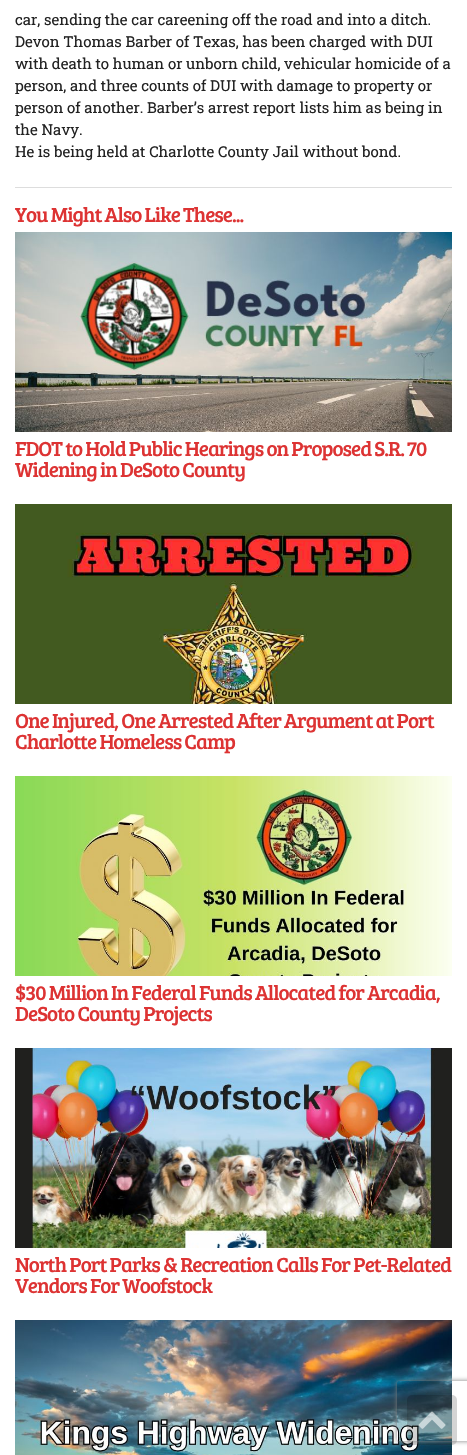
void draw(SkCanvas* canvas) {
  SkPaint paint;
  paint.setAntiAlias(true);
  auto face = [&](const char* family, int weight, float size, bool italic = false) {
    SkFontStyle style(weight, SkFontStyle::kNormal_Width,
      italic ? SkFontStyle::kItalic_Slant : SkFontStyle::kUpright_Slant);
    SkFont result(fontMgr->matchFamilyStyle(family, style), size);
    result.setSubpixel(true);
    return result;
  };
  auto writeSpaced = [&](const char* s, float x, float y, const SkFont& font, const SkPaint& ink, float letter, float word) {
    std::vector<SkGlyphID> glyphs(font.countText(s, strlen(s), SkTextEncoding::kUTF8));
    std::vector<float> xs(glyphs.size());
    font.textToGlyphs(s, strlen(s), SkTextEncoding::kUTF8, glyphs);
    font.getXPos(glyphs, xs, x);
    float extra = 0;
    for (size_t i = 0; i < glyphs.size(); i++) {
      xs[i] += extra;
      extra += letter + word * (glyphs[i] == font.unicharToGlyph(' '));
    }
    canvas->drawTextBlob(SkTextBlob::MakeFromPosHGlyphs(glyphs, xs, y, font), 0, 0, ink);
  };
  auto paste = [&](const char* path, float x, float y, float w, float h) {
    auto image = SkImages::DeferredFromEncodedData(SkData::MakeFromFileName(path));
    canvas->drawImageRect(image, SkRect::MakeXYWH(x, y, w, h), SkSamplingOptions());
  };
  auto shape = [&](const char* data, bool evenOdd = false) {
    SkPath result = *SkParsePath::FromSVGString(data);
    if (evenOdd) result.setFillType(SkPathFillType::kEvenOdd);
    return result;
  };
  canvas->clear(0xffffffff);
  paint.setColor(0xffdddddd);
  canvas->drawRect(SkRect::MakeXYWH(15, 187, 437, 1), paint);
  paste("img/1.png", 15, 232, 437, 200);
  paste("img/2.png", 15, 504, 437, 200);
  paste("img/3.png", 15, 776, 437, 200);
  paste("img/4.png", 15, 1048, 437, 200);
  paste("img/5.png", 15, 1320, 437, 135);
  paint.setColor(0x2b000000);
  canvas->drawRoundRect(SkRect::MakeXYWH(407, 1395, 50, 50), 5, 5, paint);
  paste("img/6.png", 418, 1411, 28, 18);
  canvas->save();
  canvas->clipPath(shape("M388 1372H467V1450H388ZM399 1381H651C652 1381 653 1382 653 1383V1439C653 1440 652 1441 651 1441H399C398 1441 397 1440 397 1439V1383C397 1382 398 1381 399 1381Z", true), true);
  paint.setColor(0xff808080);
  paint.setMaskFilter(SkMaskFilter::MakeBlur(kNormal_SkBlurStyle, 2.5f));
  canvas->drawRoundRect(SkRect::MakeXYWH(397, 1381, 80, 60), 2, 2, paint);
  paint.setMaskFilter(nullptr);
  canvas->restore();
  auto f0 = face("Roboto Slab", 400, 15);
  paint.setColor(0xff222222);
  {
    const struct { const char* s; float x, y; } items[] = {
      {"car, sending the car careening off the road and into a ditch.", 15, 25},
      {"Devon Thomas Barber of Texas, has been charged with DUI", 15, 47},
      {"with death to human or unborn child, vehicular homicide of a", 15, 69},
      {"person, and three counts of DUI with damage to property or", 15, 91},
      {"person of another. Barber’s arrest report lists him as being in", 15, 113},
      {"the Navy.", 15, 135},
      {"He is being held at Charlotte County Jail without bond.", 15, 157},
    };
    for (auto [s, x, y] : items) {
      canvas->drawString(s, x, y, f0, paint);
    }
  }
  auto f1 = face("Bree Serif", 400, 21);
  paint.setColor(0xffdd3333);
  {
    const struct { const char* s; float x, y; } items[] = {
      {"You Might Also Like These...", 15, 222},
      {"FDOT to Hold Public Hearings on Proposed S.R. 70", 15, 456},
      {"Widening in DeSoto County", 15, 477},
      {"One Injured, One Arrested After Argument at Port", 15, 728},
      {"Charlotte Homeless Camp", 15, 749},
      {"$30 Million In Federal Funds Allocated for Arcadia,", 15, 1000},
      {"DeSoto County Projects", 15, 1021},
      {"North Port Parks & Recreation Calls For Pet-Related", 15, 1272},
      {"Vendors For Woofstock", 15, 1293},
    };
    for (auto [s, x, y] : items) {
      writeSpaced(s, x, y, f1, paint, -1, 0);
    }
  }
}
